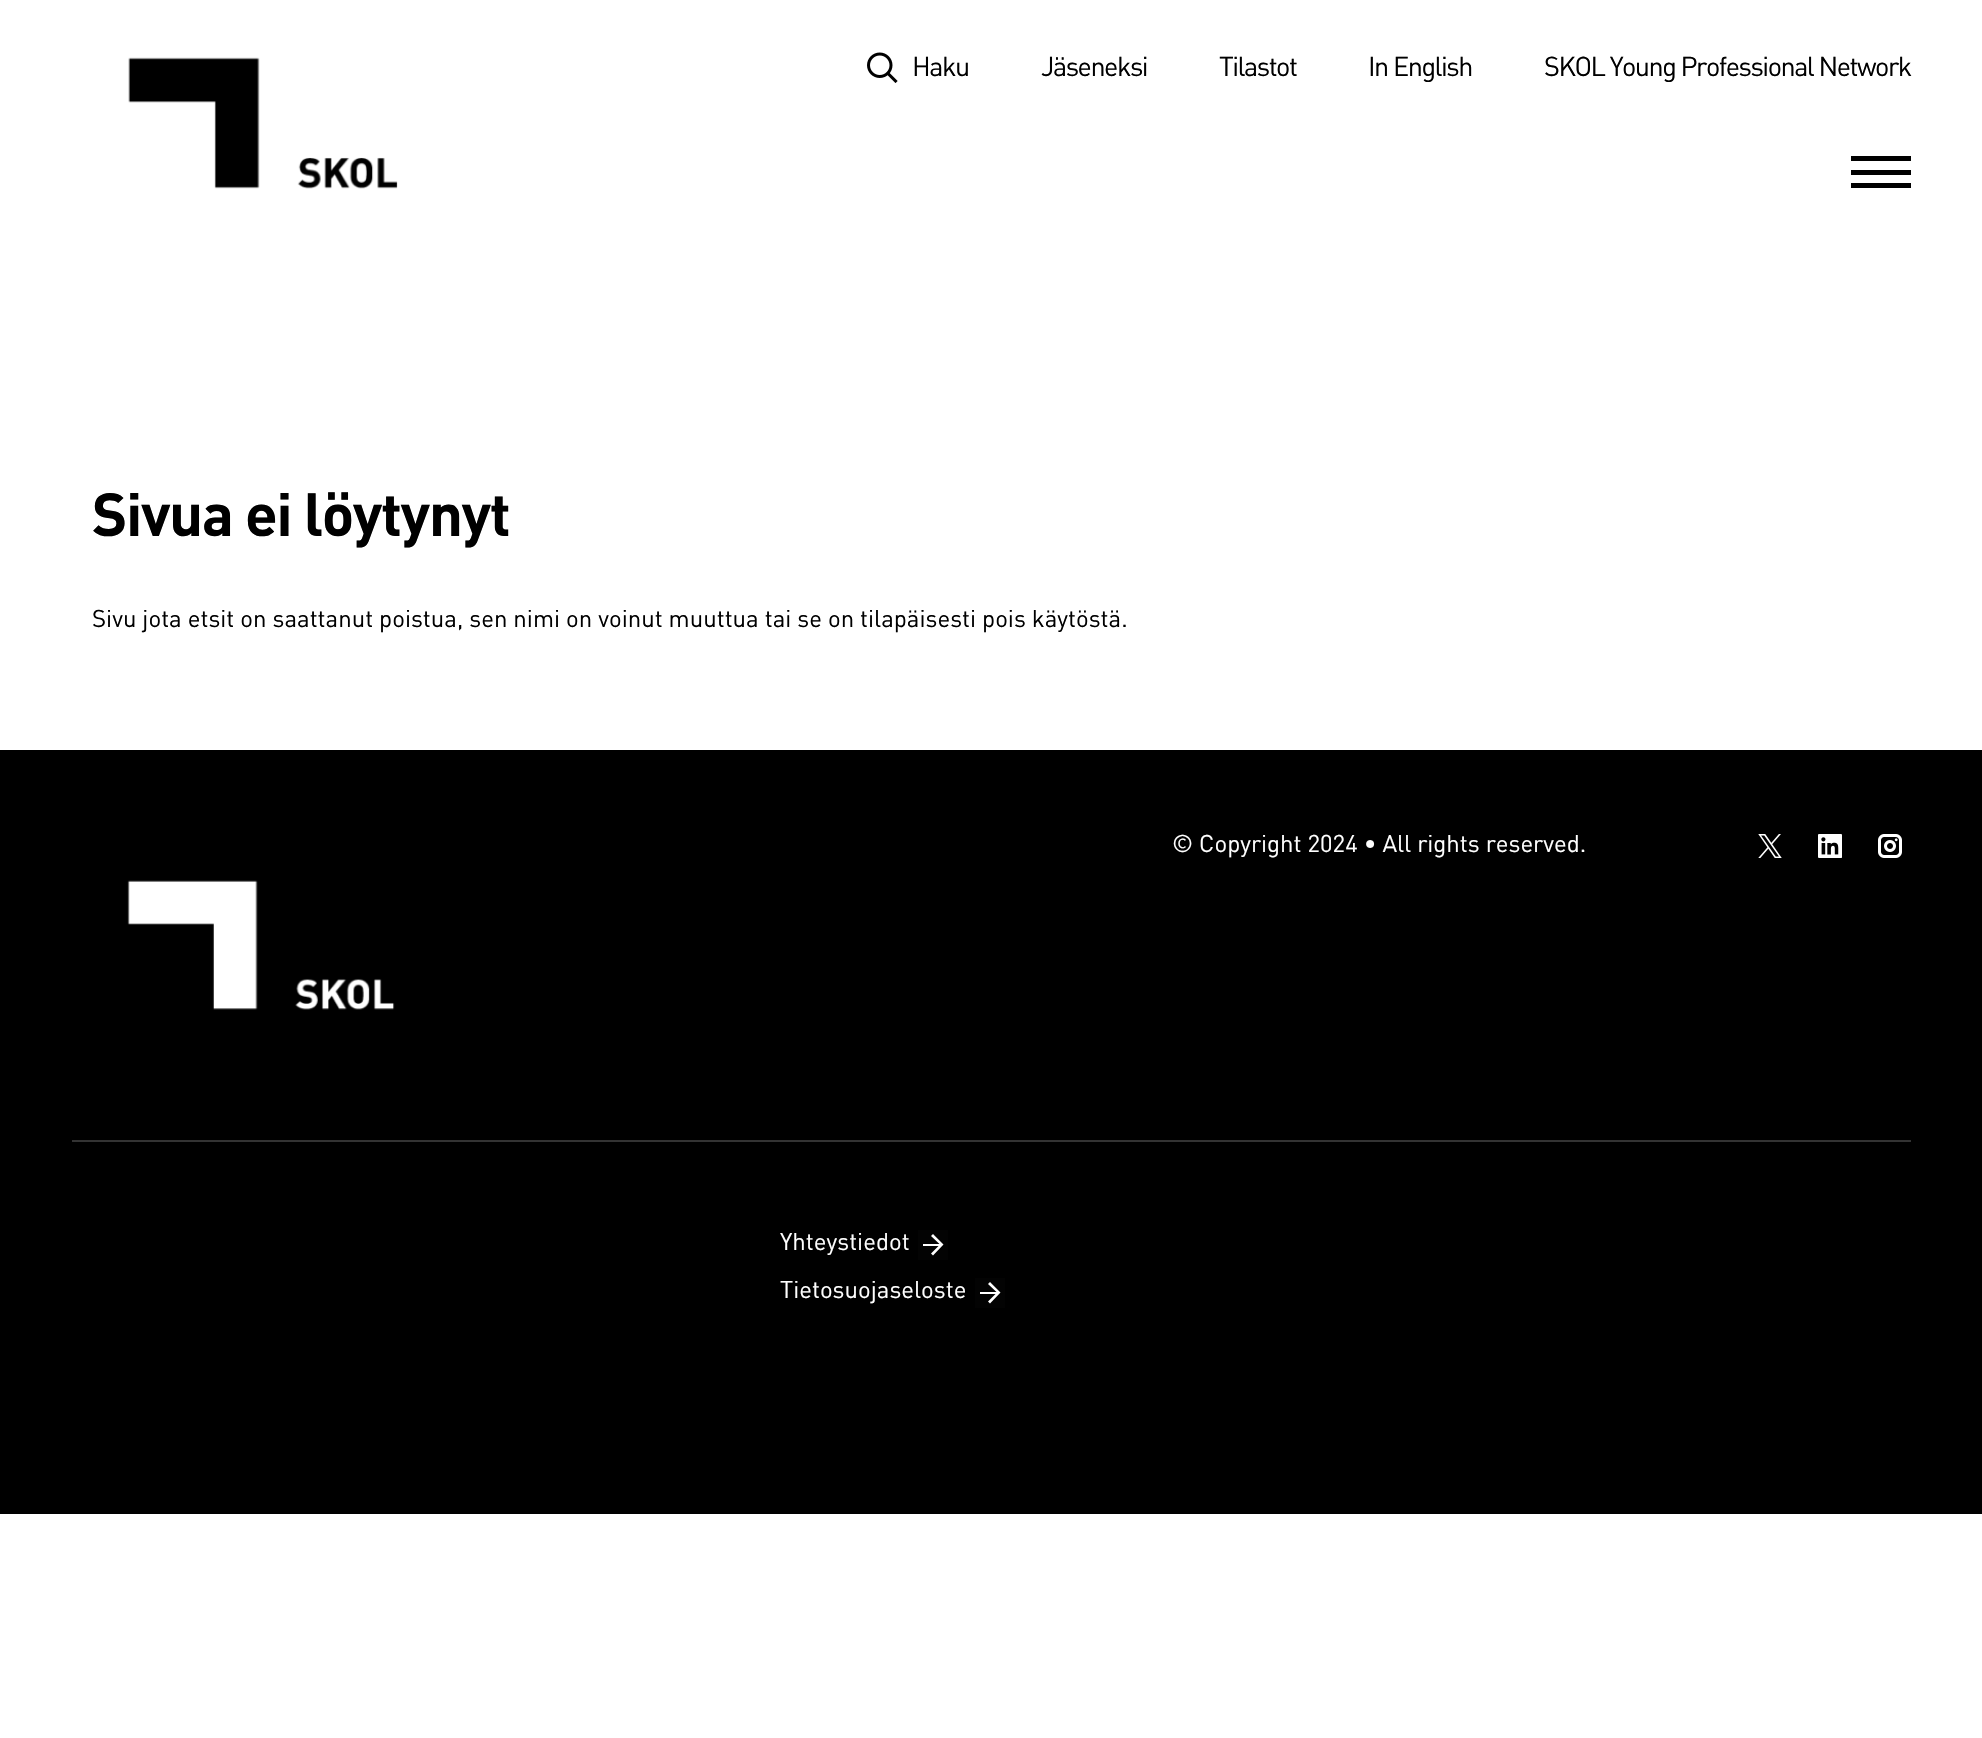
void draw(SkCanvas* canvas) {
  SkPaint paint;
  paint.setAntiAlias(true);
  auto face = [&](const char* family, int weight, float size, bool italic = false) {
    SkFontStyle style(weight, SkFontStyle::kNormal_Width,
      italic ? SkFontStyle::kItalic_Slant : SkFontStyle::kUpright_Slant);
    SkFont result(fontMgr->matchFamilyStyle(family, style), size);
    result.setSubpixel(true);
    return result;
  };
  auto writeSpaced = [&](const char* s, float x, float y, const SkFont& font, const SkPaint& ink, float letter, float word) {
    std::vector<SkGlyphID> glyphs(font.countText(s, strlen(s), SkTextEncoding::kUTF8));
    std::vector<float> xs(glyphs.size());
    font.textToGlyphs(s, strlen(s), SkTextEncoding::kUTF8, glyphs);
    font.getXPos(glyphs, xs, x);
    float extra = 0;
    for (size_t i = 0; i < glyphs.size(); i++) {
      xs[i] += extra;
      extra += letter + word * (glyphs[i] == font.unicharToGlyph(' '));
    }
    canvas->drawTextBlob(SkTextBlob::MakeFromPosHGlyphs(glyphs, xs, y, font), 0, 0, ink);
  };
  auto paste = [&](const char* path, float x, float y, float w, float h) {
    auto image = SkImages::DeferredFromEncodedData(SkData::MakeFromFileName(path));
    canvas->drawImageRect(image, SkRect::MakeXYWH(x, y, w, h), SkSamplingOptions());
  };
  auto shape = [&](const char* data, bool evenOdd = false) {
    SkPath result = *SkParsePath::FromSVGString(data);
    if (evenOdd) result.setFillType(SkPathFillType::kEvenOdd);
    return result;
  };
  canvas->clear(0xffffffff);
  paste("img/1.png", 128, 57, 270, 132);
  paste("img/2.png", 867, 52, 31, 31);
  {
    const struct { float x, y, w, h; SkColor color; } items[] = {
      {1851, 156, 60, 5, 0xff000000},
      {1851, 170, 60, 5, 0xff000000},
      {1851, 183, 60, 5, 0xff000000},
      {0, 750, 1982, 764, 0xff000000},
    };
    for (auto [x, y, w, h, color] : items) {
      paint.setColor(color);
      canvas->drawRect(SkRect::MakeXYWH(x, y, w, h), paint);
    }
  }
  paste("img/3.png", 1758, 834, 24, 24);
  paste("img/4.png", 1818, 834, 24, 24);
  paste("img/5.png", 1878, 834, 24, 24);
  paste("img/6.png", 127, 880, 268, 130);
  {
    const struct { float x, y, w, h; SkColor color; } items[] = {
      {72, 1140, 1839, 2, 0xff333333},
      {918, 1230, 30, 30, 0xff030303},
      {923, 1244, 19, 2, 0xffffffff},
    };
    for (auto [x, y, w, h, color] : items) {
      paint.setColor(color);
      canvas->drawRect(SkRect::MakeXYWH(x, y, w, h), paint);
    }
  }
  canvas->drawPath(shape("M933 1234L943.5 1244.5L933 1255.5L931 1253.5L940 1244.5L931 1236Z", true), paint);
  paint.setColor(0xff030303);
  canvas->drawRect(SkRect::MakeXYWH(975, 1278, 30, 30), paint);
  paint.setColor(0xffffffff);
  canvas->drawRect(SkRect::MakeXYWH(980, 1292, 19, 2), paint);
  canvas->drawPath(shape("M990 1282L1000.5 1292.5L990 1303.5L988 1301.5L997 1292.5L988 1284Z", true), paint);
  auto f0 = face("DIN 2", 400, 27);
  paint.setColor(0xff000000);
  {
    const struct { const char* s; float x, y; } items[] = {
      {"Haku", 912, 76},
      {"Jäseneksi", 1041, 76},
      {"Tilastot", 1219, 76},
      {"In English", 1368, 76},
      {"SKOL Young Professional Network", 1544, 76},
    };
    for (auto [s, x, y] : items) {
      writeSpaced(s, x, y, f0, paint, -1.5f, 0);
    }
  }
  auto f1 = face("DIN", 400, 60);
  writeSpaced("Sivua ei löytynyt", 92, 536, f1, paint, -1.5f, 0);
  auto f2 = face("DIN 2", 400, 24);
  canvas->drawString("Sivu jota etsit on saattanut poistua, sen nimi on voinut muuttua tai se on tilapäisesti pois käytöstä.", 92, 627, f2, paint);
  paint.setColor(0xffffffff);
  {
    const struct { const char* s; float x, y; } items[] = {
      {"© Copyright 2024 • All rights reserved.", 1172, 852},
      {"Yhteystiedot", 780, 1250},
      {"Tietosuojaseloste", 780, 1298},
    };
    for (auto [s, x, y] : items) {
      canvas->drawString(s, x, y, f2, paint);
    }
  }
}
